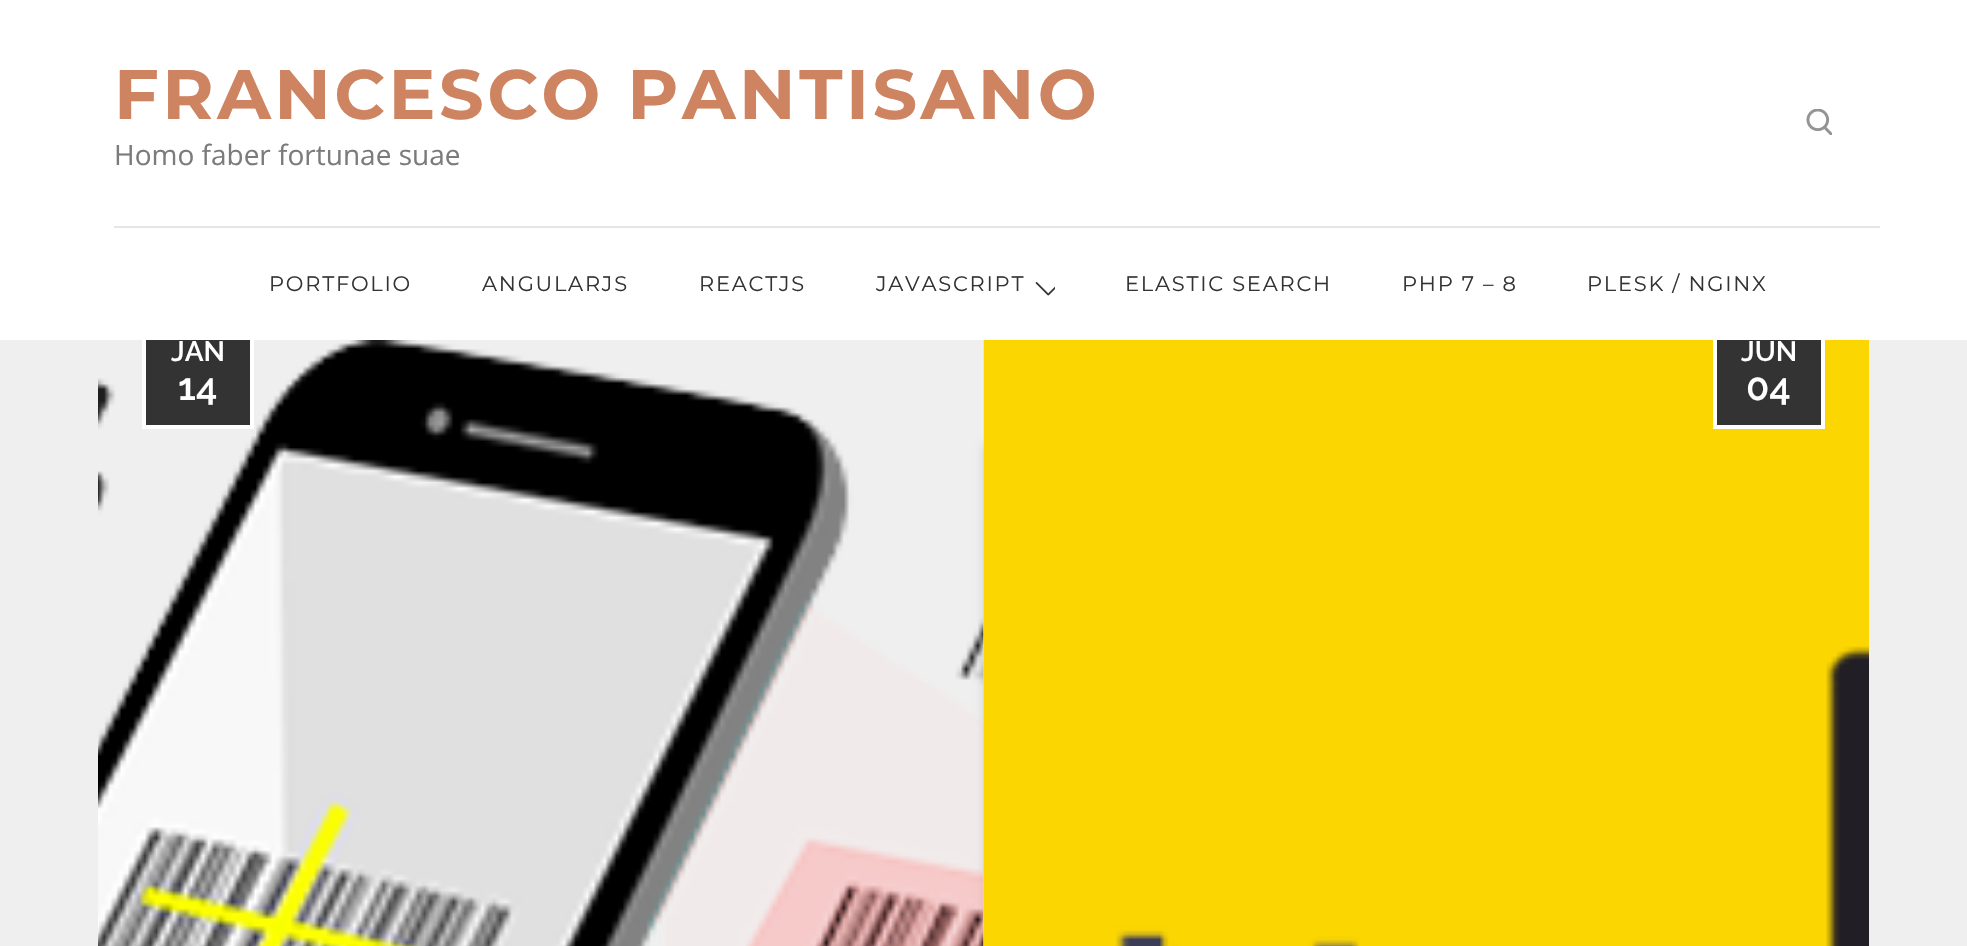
void draw(SkCanvas* canvas) {
  SkPaint paint;
  paint.setAntiAlias(true);
  auto face = [&](const char* family, int weight, float size, bool italic = false) {
    SkFontStyle style(weight, SkFontStyle::kNormal_Width,
      italic ? SkFontStyle::kItalic_Slant : SkFontStyle::kUpright_Slant);
    SkFont result(fontMgr->matchFamilyStyle(family, style), size);
    result.setSubpixel(true);
    return result;
  };
  auto writeSpaced = [&](const char* s, float x, float y, const SkFont& font, const SkPaint& ink, float letter, float word) {
    std::vector<SkGlyphID> glyphs(font.countText(s, strlen(s), SkTextEncoding::kUTF8));
    std::vector<float> xs(glyphs.size());
    font.textToGlyphs(s, strlen(s), SkTextEncoding::kUTF8, glyphs);
    font.getXPos(glyphs, xs, x);
    float extra = 0;
    for (size_t i = 0; i < glyphs.size(); i++) {
      xs[i] += extra;
      extra += letter + word * (glyphs[i] == font.unicharToGlyph(' '));
    }
    canvas->drawTextBlob(SkTextBlob::MakeFromPosHGlyphs(glyphs, xs, y, font), 0, 0, ink);
  };
  auto paste = [&](const char* path, float x, float y, float w, float h) {
    auto image = SkImages::DeferredFromEncodedData(SkData::MakeFromFileName(path));
    canvas->drawImageRect(image, SkRect::MakeXYWH(x, y, w, h), SkSamplingOptions());
  };
  canvas->clear(0xffefefef);
  canvas->save();
  canvas->clipRect(SkRect::MakeXYWH(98, 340, 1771, 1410));
  paint.setColor(0x26030303);
  paint.setMaskFilter(SkMaskFilter::MakeBlur(kNormal_SkBlurStyle, 4.5f));
  canvas->drawRect(SkRect::MakeXYWH(984, 446, 885, 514), paint);
  paint.setMaskFilter(nullptr);
  canvas->restore();
  paste("img/3.png", 98, 340, 886, 606);
  paint.setColor(0xff333333);
  canvas->drawRect(SkRect::MakeXYWH(146, 340, 104, 85), paint);
  paint.setStroke(true);
  paint.setStrokeWidth(4);
  paint.setColor(0xffffffff);
  canvas->drawRect(SkRect::MakeXYWH(144, 315, 108, 112), paint);
  paste("img/4.png", 983, 340, 886, 606);
  paint.setStroke(false);
  paint.setColor(0xff333333);
  canvas->drawRect(SkRect::MakeXYWH(1717, 340, 104, 85), paint);
  paint.setStroke(true);
  paint.setColor(0xffffffff);
  canvas->drawRect(SkRect::MakeXYWH(1715, 315, 108, 112), paint);
  paint.setStroke(false);
  canvas->drawRect(SkRect::MakeXYWH(0, 0, 1967, 340), paint);
  paint.setColor(0xffe5e5e5);
  canvas->drawRect(SkRect::MakeXYWH(114, 226, 1766, 2), paint);
  paste("img/1.png", 1035, 282, 20, 14);
  paste("img/2.png", 1806, 109, 26, 26);
  auto f0 = face("Montserrat", 700, 70);
  paint.setColor(0xffce8460);
  writeSpaced("FRANCESCO PANTISANO", 114, 119, f0, paint, 3.5f, 0);
  auto f1 = face("Open Sans", 400, 28);
  paint.setColor(0xff7b7b7b);
  canvas->drawString("Homo faber fortunae suae", 114, 165, f1, paint);
  auto f2 = face("Montserrat", 400, 21);
  paint.setColor(0xff333333);
  {
    const struct { const char* s; float x, y; } items[] = {
      {"PORTFOLIO", 269, 291},
      {"ANGULARJS", 482, 291},
      {"REACTJS", 699, 291},
      {"JAVASCRIPT", 876, 291},
      {"ELASTIC SEARCH", 1125, 291},
      {"PHP 7 – 8", 1402, 291},
      {"PLESK / NGINX", 1587, 291},
    };
    for (auto [s, x, y] : items) {
      writeSpaced(s, x, y, f2, paint, 1.75f, 0);
    }
  }
  auto f3 = face("Raleway", 600, 28);
  paint.setColor(0xffffffff);
  canvas->drawString("JAN", 171, 361, f3, paint);
  auto f4 = face("Raleway", 600, 38);
  canvas->drawString("14", 178, 400, f4, paint);
  canvas->drawString("JUN", 1741, 361, f3, paint);
  canvas->drawString("04", 1746, 400, f4, paint);
}
